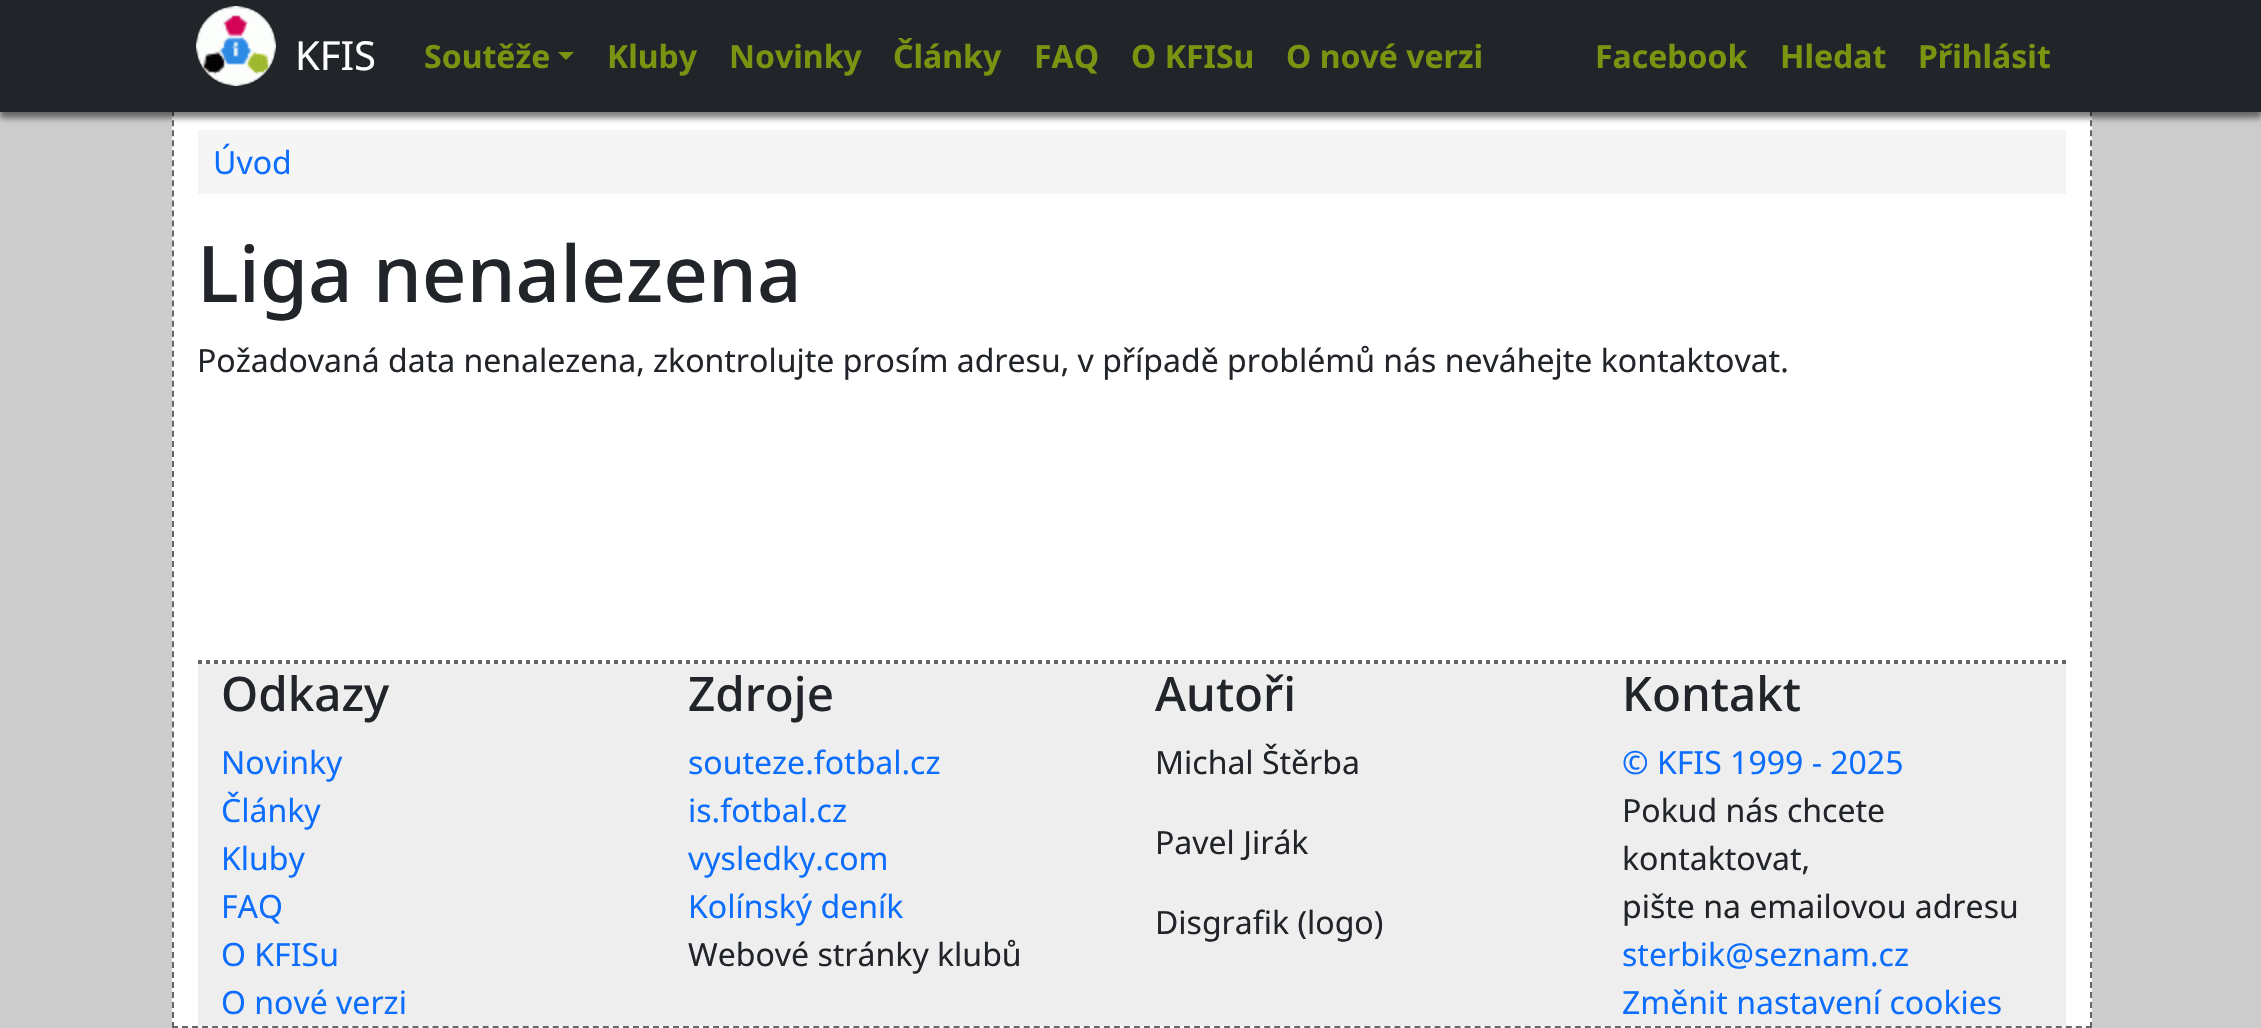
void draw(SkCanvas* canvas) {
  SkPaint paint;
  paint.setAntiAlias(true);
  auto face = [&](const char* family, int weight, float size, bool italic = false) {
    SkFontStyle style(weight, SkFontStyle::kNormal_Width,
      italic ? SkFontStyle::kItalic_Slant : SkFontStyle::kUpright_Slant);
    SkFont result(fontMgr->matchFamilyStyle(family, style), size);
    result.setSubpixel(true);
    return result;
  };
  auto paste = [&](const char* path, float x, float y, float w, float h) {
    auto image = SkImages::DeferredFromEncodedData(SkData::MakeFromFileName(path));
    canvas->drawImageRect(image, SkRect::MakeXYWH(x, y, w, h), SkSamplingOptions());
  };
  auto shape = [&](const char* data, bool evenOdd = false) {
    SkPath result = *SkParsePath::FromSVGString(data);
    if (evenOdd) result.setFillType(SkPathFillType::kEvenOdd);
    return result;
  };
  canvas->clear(0xffcccccc);
  paint.setColor(0xffffffff);
  canvas->drawRect(SkRect::MakeXYWH(172, 112, 1920, 916), paint);
  paint.setStroke(true);
  paint.setStrokeWidth(2);
  paint.setColor(0xff666666);
  paint.setPathEffect(SkDashPathEffect::Make({{6, 4.02f}}, 0));
  canvas->drawPath(shape("M2091 0V1028"), paint);
  paint.setPathEffect(nullptr);
  paint.setPathEffect(SkDashPathEffect::Make({{6, 4.02f}}, 0));
  canvas->drawPath(shape("M172 1027H2092"), paint);
  paint.setPathEffect(nullptr);
  paint.setPathEffect(SkDashPathEffect::Make({{6, 4.02f}}, 0));
  canvas->drawPath(shape("M173 0V1028"), paint);
  paint.setPathEffect(nullptr);
  paint.setStroke(false);
  paint.setColor(0x80000000);
  paint.setMaskFilter(SkMaskFilter::MakeBlur(kNormal_SkBlurStyle, 3));
  canvas->drawRect(SkRect::MakeXYWH(0, 6, 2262, 112), paint);
  paint.setMaskFilter(nullptr);
  paint.setColor(0xff212529);
  canvas->drawRect(SkRect::MakeXYWH(0, 0, 2261, 112), paint);
  paste("img/1.png", 196, 6, 80, 80);
  paint.setColor(0xff789410);
  canvas->drawPath(shape("M558 52H574L566 60Z"), paint);
  paint.setColor(0xfff5f5f5);
  canvas->drawRect(SkRect::MakeXYWH(198, 130, 1868, 64), paint);
  paint.setStroke(true);
  paint.setStrokeWidth(4);
  paint.setColor(0xff666666);
  paint.setPathEffect(SkDashPathEffect::Make({{4, 4}}, 0));
  canvas->drawPath(shape("M198 662H2066"), paint);
  paint.setPathEffect(nullptr);
  paint.setStroke(false);
  paint.setColor(0xffeeeeee);
  canvas->drawRect(SkRect::MakeXYWH(198, 664, 1868, 362), paint);
  auto f0 = face("Noto Sans", 400, 40);
  paint.setColor(0xffffffff);
  canvas->drawString("KFIS", 295, 70, f0, paint);
  auto f1 = face("Noto Sans", 700, 32);
  paint.setColor(0xff789410);
  {
    const struct { const char* s; float x, y; } items[] = {
      {"Soutěže", 424, 68},
      {"Kluby", 607, 68},
      {"Novinky", 729, 68},
      {"Články", 893, 68},
      {"FAQ", 1034, 68},
      {"O KFISu", 1131, 68},
      {"O nové verzi", 1286, 68},
      {"Facebook", 1595, 68},
      {"Hledat", 1780, 68},
      {"Přihlásit", 1918, 68},
    };
    for (auto [s, x, y] : items) {
      canvas->drawString(s, x, y, f1, paint);
    }
  }
  auto f2 = face("Noto Sans", 400, 32);
  paint.setColor(0xff0d6efd);
  canvas->drawString("Úvod", 213, 174, f2, paint);
  auto f3 = face("Noto Sans", 500, 78);
  paint.setColor(0xff212529);
  canvas->drawString("Liga nenalezena", 197, 302, f3, paint);
  canvas->drawString("Požadovaná data nenalezena, zkontrolujte prosím adresu, v případě problémů nás neváhejte kontaktovat.", 197, 372, f2, paint);
  auto f4 = face("Noto Sans", 500, 47.5f);
  canvas->drawString("Odkazy", 221, 711, f4, paint);
  paint.setColor(0xff0d6efd);
  {
    const struct { const char* s; float x, y; } items[] = {
      {"Novinky", 221, 774},
      {"Články", 221, 822},
      {"Kluby", 221, 870},
      {"FAQ", 221, 918},
      {"O KFISu", 221, 966},
      {"O nové verzi", 221, 1014},
    };
    for (auto [s, x, y] : items) {
      canvas->drawString(s, x, y, f2, paint);
    }
  }
  paint.setColor(0xff212529);
  canvas->drawString("Zdroje", 688, 711, f4, paint);
  paint.setColor(0xff0d6efd);
  {
    const struct { const char* s; float x, y; } items[] = {
      {"souteze.fotbal.cz", 688, 774},
      {"is.fotbal.cz", 688, 822},
      {"vysledky.com", 688, 870},
      {"Kolínský deník", 688, 918},
    };
    for (auto [s, x, y] : items) {
      canvas->drawString(s, x, y, f2, paint);
    }
  }
  paint.setColor(0xff212529);
  canvas->drawString("Webové stránky klubů", 688, 966, f2, paint);
  canvas->drawString("Autoři", 1155, 711, f4, paint);
  {
    const struct { const char* s; float x, y; } items[] = {
      {"Michal Štěrba", 1155, 774},
      {"Pavel Jirák", 1155, 854},
      {"Disgrafik (logo)", 1155, 934},
    };
    for (auto [s, x, y] : items) {
      canvas->drawString(s, x, y, f2, paint);
    }
  }
  canvas->drawString("Kontakt", 1622, 711, f4, paint);
  paint.setColor(0xff0d6efd);
  canvas->drawString("© KFIS 1999 - 2025", 1622, 774, f2, paint);
  paint.setColor(0xff212529);
  {
    const struct { const char* s; float x, y; } items[] = {
      {"Pokud nás chcete", 1622, 822},
      {"kontaktovat,", 1622, 870},
      {"pište na emailovou adresu", 1622, 918},
    };
    for (auto [s, x, y] : items) {
      canvas->drawString(s, x, y, f2, paint);
    }
  }
  paint.setColor(0xff0d6efd);
  canvas->drawString("sterbik@seznam.cz", 1622, 966, f2, paint);
  canvas->drawString("Změnit nastavení cookies", 1622, 1014, f2, paint);
}
